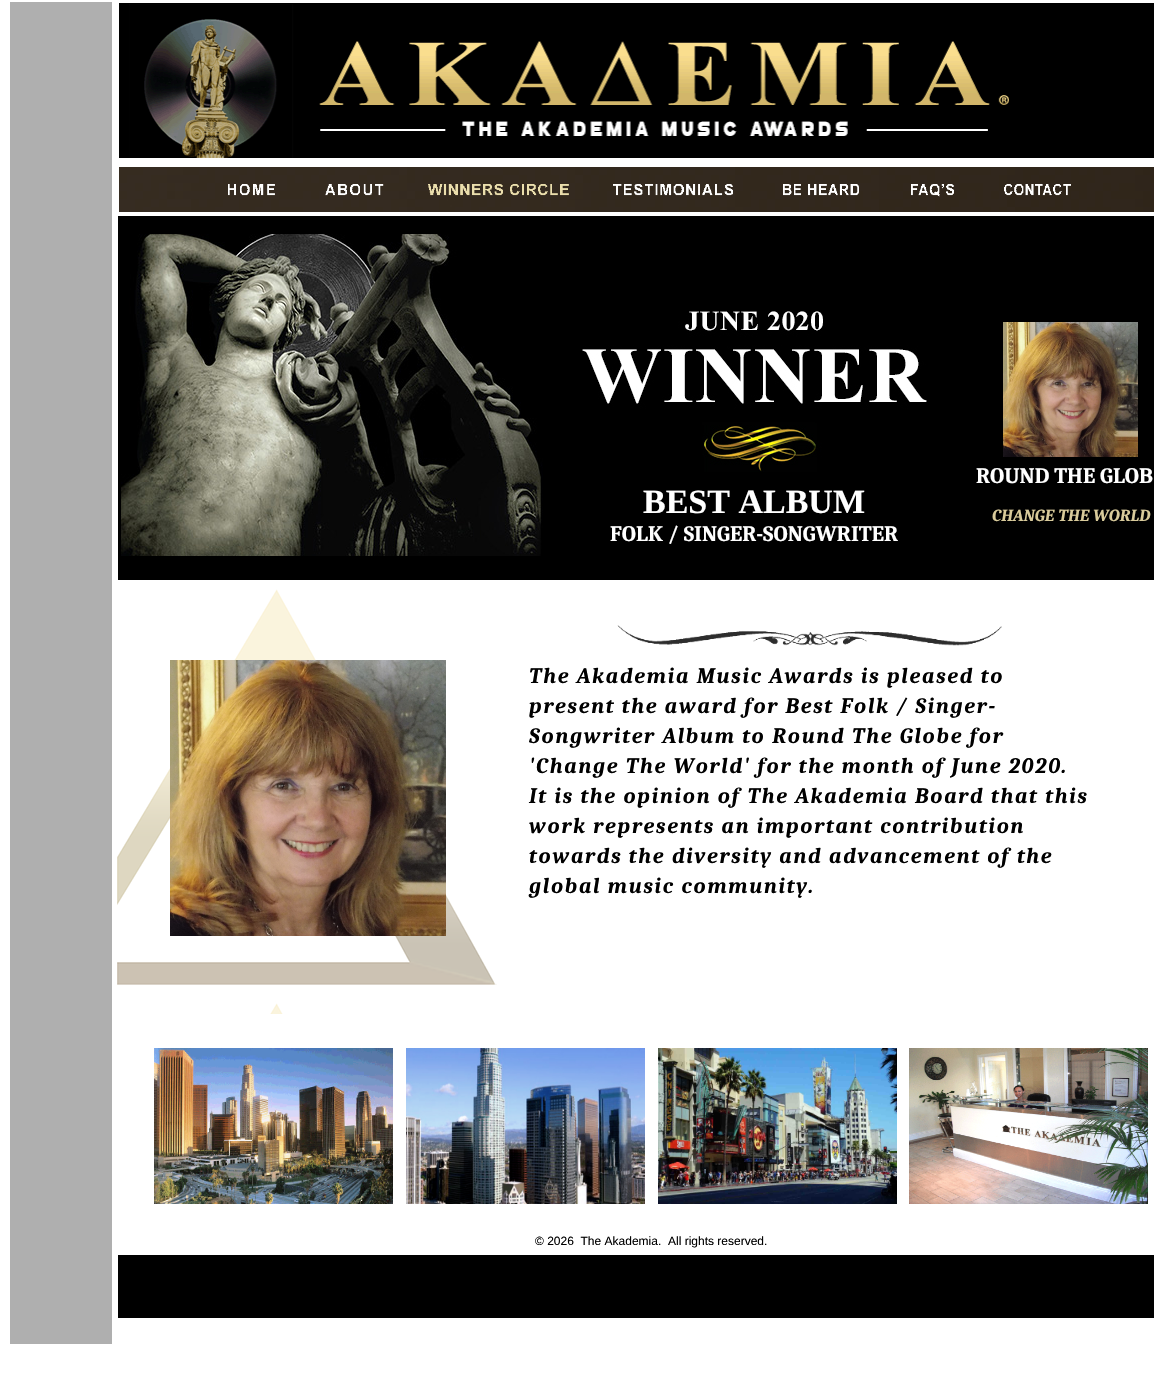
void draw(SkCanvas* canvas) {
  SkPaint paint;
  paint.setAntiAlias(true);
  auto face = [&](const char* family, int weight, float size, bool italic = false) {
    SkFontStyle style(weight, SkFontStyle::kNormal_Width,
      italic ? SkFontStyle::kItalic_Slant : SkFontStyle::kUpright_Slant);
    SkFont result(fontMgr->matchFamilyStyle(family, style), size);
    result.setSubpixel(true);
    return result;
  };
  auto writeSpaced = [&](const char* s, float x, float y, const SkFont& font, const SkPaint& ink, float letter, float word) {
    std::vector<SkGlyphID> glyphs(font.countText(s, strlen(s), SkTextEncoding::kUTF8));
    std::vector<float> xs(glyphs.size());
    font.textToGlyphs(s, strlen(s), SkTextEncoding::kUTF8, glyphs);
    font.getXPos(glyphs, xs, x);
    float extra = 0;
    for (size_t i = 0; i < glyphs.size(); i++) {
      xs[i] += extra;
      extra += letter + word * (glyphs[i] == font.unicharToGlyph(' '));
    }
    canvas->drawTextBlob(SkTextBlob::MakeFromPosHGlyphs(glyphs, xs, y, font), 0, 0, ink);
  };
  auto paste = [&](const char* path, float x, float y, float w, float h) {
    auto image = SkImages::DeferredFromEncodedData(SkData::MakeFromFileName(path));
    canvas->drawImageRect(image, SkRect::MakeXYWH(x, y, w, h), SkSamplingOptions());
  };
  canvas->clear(0xffffffff);
  paint.setColor(0xffafafaf);
  canvas->drawRect(SkRect::MakeXYWH(10, 2, 102, 1342), paint);
  paste("img/1.png", 119, 3, 1035, 155);
  paste("img/2.png", 119, 167, 1035, 45);
  paste("img/3.png", 228, 184, 47, 12);
  paste("img/4.png", 325, 184, 59, 12);
  paste("img/5.png", 428, 184, 141, 12);
  paste("img/6.png", 613, 184, 120, 12);
  paste("img/7.png", 783, 184, 76, 12);
  paste("img/8.png", 911, 184, 43, 13);
  paste("img/9.png", 1004, 184, 67, 12);
  paint.setColor(0xff000000);
  canvas->drawRect(SkRect::MakeXYWH(118, 216, 1036, 364), paint);
  paste("img/10.png", 121, 234, 422, 322);
  paste("img/11.png", 582, 311, 345, 161);
  paste("img/12.png", 1003, 322, 135, 135);
  paste("img/13.png", 117, 589, 380, 425);
  paste("img/14.png", 170, 660, 276, 276);
  paste("img/15.png", 617, 625, 385, 21);
  paste("img/16.png", 154, 1048, 239, 156);
  paste("img/17.png", 406, 1048, 239, 156);
  paste("img/18.png", 658, 1048, 239, 156);
  paste("img/19.png", 909, 1048, 239, 156);
  canvas->drawRect(SkRect::MakeXYWH(118, 1255, 1036, 63), paint);
  auto f0 = face("Liberation Serif", 700, 34);
  paint.setColor(0xffffffff);
  canvas->drawString("BEST ALBUM", 643, 513, f0, paint);
  auto f1 = face("Caladea", 700, 22);
  canvas->drawString("FOLK / SINGER-SONGWRITER", 610, 541, f1, paint);
  canvas->drawString("ROUND THE GLOB", 976, 483, f1, paint);
  auto f2 = face("Caladea", 700, 17, true);
  paint.setColor(0xffd9cb9b);
  canvas->drawString("CHANGE THE WORLD", 992, 521, f2, paint);
  auto f3 = face("Caladea", 700, 22, true);
  paint.setColor(0xff000000);
  {
    const struct { const char* s; float x, y; } items[] = {
      {"The Akademia Music Awards is pleased to", 529, 683},
      {"present the award for Best Folk / Singer-", 529, 713},
      {"Songwriter Album to Round The Globe for", 529, 743},
      {"'Change The World' for the month of June 2020.", 529, 773},
      {"It is the opinion of The Akademia Board that this", 529, 803},
      {"work represents an important contribution", 529, 833},
      {"towards the diversity and advancement of the", 529, 863},
      {"global music community.", 529, 893},
    };
    for (auto [s, x, y] : items) {
      writeSpaced(s, x, y, f3, paint, 1.75f, 0);
    }
  }
  auto f4 = face("Liberation Sans", 400, 12);
  canvas->drawString("© 2026  The Akademia.", 535, 1245, f4, paint);
  canvas->drawString("All rights reserved.", 668, 1245, f4, paint);
}
